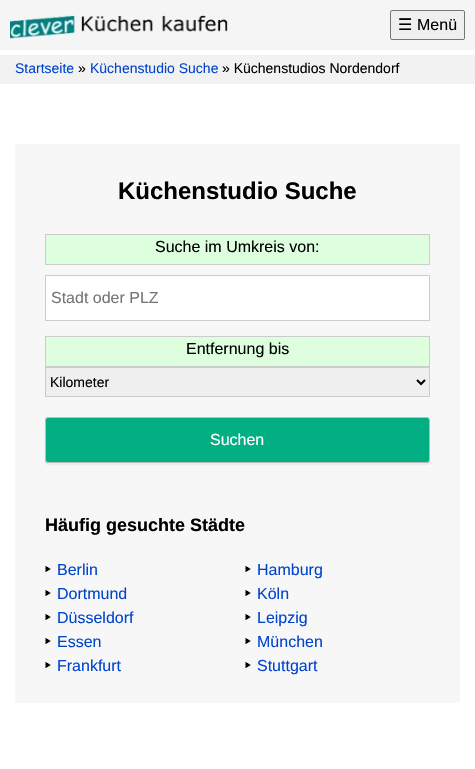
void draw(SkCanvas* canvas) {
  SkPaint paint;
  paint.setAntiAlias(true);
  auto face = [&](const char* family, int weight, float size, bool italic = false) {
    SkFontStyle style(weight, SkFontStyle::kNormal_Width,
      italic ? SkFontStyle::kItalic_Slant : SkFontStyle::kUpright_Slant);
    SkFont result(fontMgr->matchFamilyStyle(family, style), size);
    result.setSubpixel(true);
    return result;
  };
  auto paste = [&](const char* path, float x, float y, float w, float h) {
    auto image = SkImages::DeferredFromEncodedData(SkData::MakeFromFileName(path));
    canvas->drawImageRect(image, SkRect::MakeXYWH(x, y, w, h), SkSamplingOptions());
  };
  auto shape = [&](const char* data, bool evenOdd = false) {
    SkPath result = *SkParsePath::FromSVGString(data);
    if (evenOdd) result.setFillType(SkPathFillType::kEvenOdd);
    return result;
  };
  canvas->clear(0xffffffff);
  paint.setColor(0xfff5f5f5);
  canvas->drawRect(SkRect::MakeXYWH(0, 0, 475, 50), paint);
  paste("img/1.png", 10, 15, 218, 24);
  paint.setColor(0xffefefef);
  canvas->drawRoundRect(SkRect::MakeXYWH(390.5f, 10.5f, 74, 29), 1.5f, 1.5f, paint);
  paint.setStroke(true);
  paint.setStrokeWidth(1);
  paint.setColor(0xff767676);
  canvas->drawRoundRect(SkRect::MakeXYWH(390.5f, 10.5f, 74, 29), 1.5f, 1.5f, paint);
  paint.setStroke(false);
  paint.setColor(0xfff2f2f2);
  canvas->drawRect(SkRect::MakeXYWH(0, 55, 475, 29), paint);
  paint.setColor(0xfff7f7f7);
  canvas->drawRect(SkRect::MakeXYWH(15, 144, 445, 559), paint);
  paint.setColor(0xffddffdd);
  canvas->drawRect(SkRect::MakeXYWH(45.5f, 234.5f, 384, 30), paint);
  paint.setStroke(true);
  paint.setColor(0xffcccccc);
  canvas->drawRect(SkRect::MakeXYWH(45.5f, 234.5f, 384, 30), paint);
  paint.setStroke(false);
  paint.setColor(0xffffffff);
  canvas->drawRect(SkRect::MakeXYWH(45.5f, 275.5f, 384, 45), paint);
  paint.setStroke(true);
  paint.setColor(0xffcccccc);
  canvas->drawRect(SkRect::MakeXYWH(45.5f, 275.5f, 384, 45), paint);
  paint.setStroke(false);
  paint.setColor(0xffddffdd);
  canvas->drawRect(SkRect::MakeXYWH(45.5f, 336.5f, 384, 30), paint);
  paint.setStroke(true);
  paint.setColor(0xffcccccc);
  canvas->drawRect(SkRect::MakeXYWH(45.5f, 336.5f, 384, 30), paint);
  paint.setStroke(false);
  paint.setColor(0xffefefef);
  canvas->drawRect(SkRect::MakeXYWH(45.5f, 367.5f, 384, 29), paint);
  paint.setStroke(true);
  paint.setColor(0xffcccccc);
  canvas->drawRect(SkRect::MakeXYWH(45.5f, 367.5f, 384, 29), paint);
  paint.setStrokeWidth(2);
  paint.setColor(0xff000000);
  canvas->drawPath(shape("M417 380L421 384L425 380"), paint);
  paint.setStroke(false);
  paint.setColor(0x0f1c1f3f);
  paint.setMaskFilter(SkMaskFilter::MakeBlur(kNormal_SkBlurStyle, 0.5f));
  canvas->drawRoundRect(SkRect::MakeXYWH(45, 419, 385, 46), 3, 3, paint);
  paint.setMaskFilter(nullptr);
  paint.setColor(0xff04ae83);
  canvas->drawRoundRect(SkRect::MakeXYWH(45.5f, 417.5f, 384, 45), 2.5f, 2.5f, paint);
  paint.setStroke(true);
  paint.setStrokeWidth(1);
  paint.setColor(0xffbbbbbb);
  canvas->drawRoundRect(SkRect::MakeXYWH(45.5f, 417.5f, 384, 45), 2.5f, 2.5f, paint);
  paste("img/2.png", 45, 566, 6, 6);
  paste("img/2.png", 45, 590, 6, 6);
  paste("img/2.png", 45, 614, 6, 6);
  paste("img/2.png", 45, 638, 6, 6);
  paste("img/2.png", 45, 662, 6, 6);
  paste("img/2.png", 245, 566, 6, 6);
  paste("img/2.png", 245, 590, 6, 6);
  paste("img/2.png", 245, 614, 6, 6);
  paste("img/2.png", 245, 638, 6, 6);
  paste("img/2.png", 245, 662, 6, 6);
  auto f0 = face("DejaVu Sans", 400, 16);
  paint.setStroke(false);
  paint.setColor(0xff000000);
  canvas->drawString("☰", 398, 30, f0, paint);
  auto f1 = face("Liberation Sans", 400, 16);
  canvas->drawString("Menü", 417, 30, f1, paint);
  auto f2 = face("Liberation Sans", 400, 14);
  paint.setColor(0xff0044cc);
  canvas->drawString("Startseite", 15, 73, f2, paint);
  paint.setColor(0xff000000);
  canvas->drawString("»", 78, 73, f2, paint);
  paint.setColor(0xff0044cc);
  canvas->drawString("Küchenstudio Suche", 90, 73, f2, paint);
  paint.setColor(0xff000000);
  canvas->drawString("» Küchenstudios Nordendorf", 222, 73, f2, paint);
  auto f3 = face("Liberation Sans", 700, 24);
  canvas->drawString("Küchenstudio Suche", 118, 199, f3, paint);
  canvas->drawString("Suche im Umkreis von:", 155, 252, f1, paint);
  paint.setColor(0xff757575);
  canvas->drawString("Stadt oder PLZ", 51, 303, f1, paint);
  paint.setColor(0xff000000);
  canvas->drawString("Entfernung bis", 186, 354, f1, paint);
  canvas->drawString("Kilometer", 50, 387, f2, paint);
  paint.setColor(0xffffffff);
  canvas->drawString("Suchen", 210, 445, f1, paint);
  auto f4 = face("Liberation Sans", 700, 18);
  paint.setColor(0xff000000);
  canvas->drawString("Häufig gesuchte Städte", 45, 531, f4, paint);
  paint.setColor(0xff0044cc);
  {
    const struct { const char* s; float x, y; } items[] = {
      {"Berlin", 57, 575},
      {"Dortmund", 57, 599},
      {"Düsseldorf", 57, 623},
      {"Essen", 57, 647},
      {"Frankfurt", 57, 671},
      {"Hamburg", 257, 575},
      {"Köln", 257, 599},
      {"Leipzig", 257, 623},
      {"München", 257, 647},
      {"Stuttgart", 257, 671},
    };
    for (auto [s, x, y] : items) {
      canvas->drawString(s, x, y, f1, paint);
    }
  }
}
